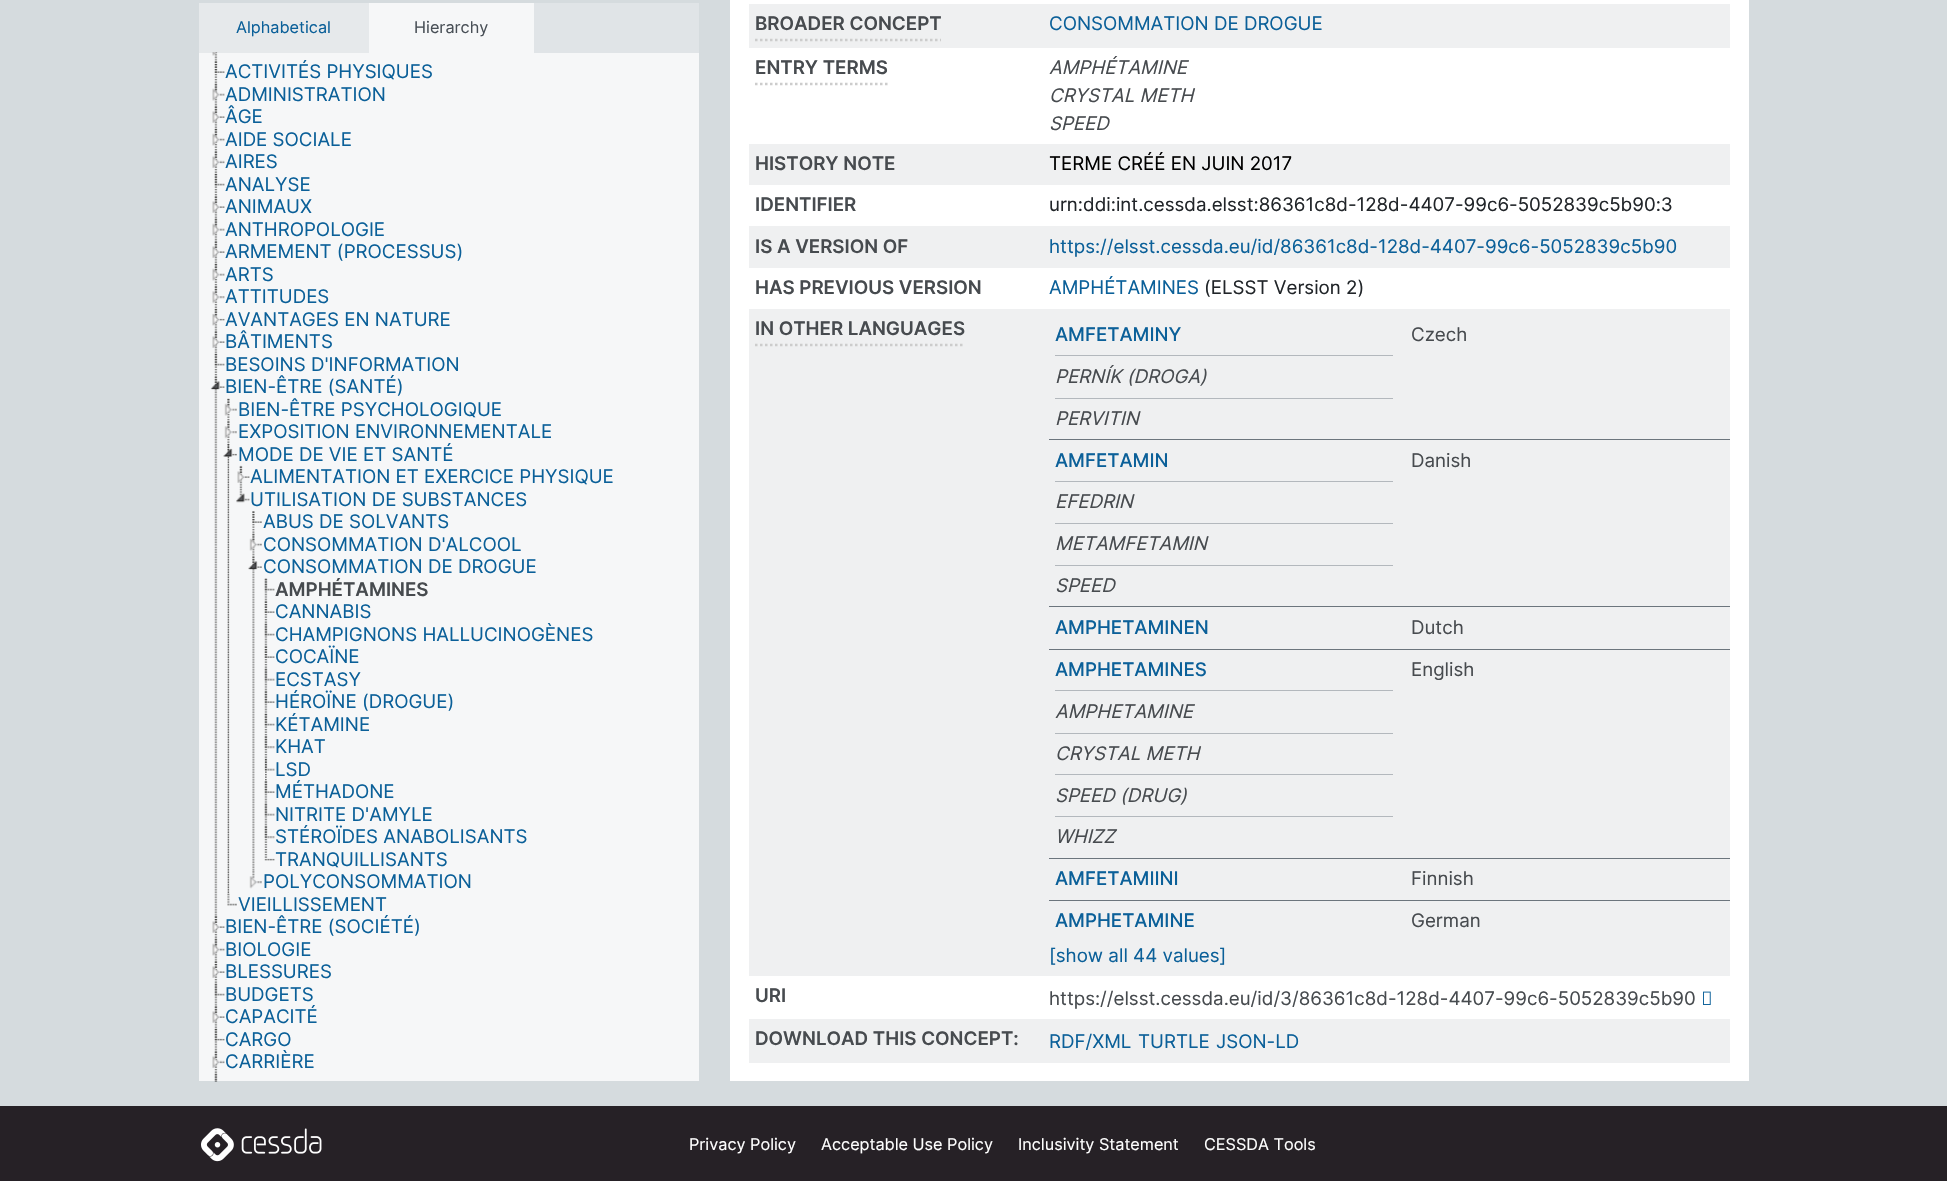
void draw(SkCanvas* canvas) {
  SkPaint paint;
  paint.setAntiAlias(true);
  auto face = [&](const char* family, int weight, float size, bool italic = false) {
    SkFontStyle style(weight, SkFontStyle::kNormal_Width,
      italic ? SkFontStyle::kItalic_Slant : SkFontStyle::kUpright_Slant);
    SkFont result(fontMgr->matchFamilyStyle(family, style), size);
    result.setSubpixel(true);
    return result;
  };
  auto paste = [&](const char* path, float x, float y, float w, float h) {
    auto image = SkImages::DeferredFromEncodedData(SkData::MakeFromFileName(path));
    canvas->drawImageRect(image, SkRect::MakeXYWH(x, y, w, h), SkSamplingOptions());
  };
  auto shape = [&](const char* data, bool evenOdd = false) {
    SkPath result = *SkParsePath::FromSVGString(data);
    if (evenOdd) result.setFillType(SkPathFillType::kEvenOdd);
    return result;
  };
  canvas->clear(0xffd5dbde);
  {
    const struct { float x, y, w, h; SkColor color; } items[] = {
      {534, 3, 165, 50, 0xffe0e4e7},
      {199, 3, 170, 50, 0xffe6e9eb},
      {369, 3, 165, 50, 0xfff6f7f8},
      {199, 53, 500, 1028, 0xfff6f7f8},
    };
    for (auto [x, y, w, h, color] : items) {
      paint.setColor(color);
      canvas->drawRect(SkRect::MakeXYWH(x, y, w, h), paint);
    }
  }
  paste("img/1.png", 214, 52, 4, 9);
  paste("img/2.png", 212, 52, 5, 4);
  paste("img/3.png", 214, 61, 4, 22);
  paste("img/4.png", 214, 61, 11, 12);
  paste("img/5.png", 214, 83, 4, 23);
  paste("img/6.png", 212, 83, 13, 18);
  paste("img/7.png", 214, 105, 4, 24);
  paste("img/8.png", 212, 106, 13, 17);
  paste("img/9.png", 214, 129, 4, 22);
  paste("img/10.png", 212, 128, 13, 18);
  paste("img/3.png", 214, 151, 4, 22);
  paste("img/11.png", 212, 150, 13, 18);
  paste("img/9.png", 214, 174, 4, 22);
  paste("img/12.png", 214, 173, 11, 13);
  paste("img/13.png", 214, 195, 4, 24);
  paste("img/8.png", 212, 196, 13, 17);
  paste("img/14.png", 214, 218, 4, 23);
  paste("img/15.png", 212, 218, 13, 18);
  paste("img/7.png", 214, 240, 4, 24);
  paste("img/8.png", 212, 241, 13, 17);
  paste("img/9.png", 214, 264, 4, 22);
  paste("img/16.png", 212, 263, 13, 18);
  paste("img/17.png", 214, 286, 4, 22);
  paste("img/18.png", 212, 286, 13, 18);
  paste("img/19.png", 214, 308, 4, 23);
  paste("img/20.png", 212, 309, 13, 17);
  paste("img/21.png", 214, 330, 4, 24);
  paste("img/22.png", 212, 331, 13, 17);
  paste("img/9.png", 214, 354, 4, 22);
  paste("img/23.png", 214, 353, 11, 13);
  paste("img/24.png", 214, 376, 4, 541);
  paste("img/25.png", 210, 376, 15, 14);
  paste("img/26.png", 227, 399, 3, 22);
  paste("img/27.png", 224, 398, 13, 18);
  paste("img/28.png", 227, 421, 3, 22);
  paste("img/29.png", 224, 421, 13, 18);
  paste("img/30.png", 227, 443, 3, 452);
  paste("img/31.png", 223, 444, 14, 13);
  paste("img/32.png", 239, 465, 4, 24);
  paste("img/33.png", 237, 466, 13, 17);
  paste("img/34.png", 236, 488, 14, 15);
  paste("img/28.png", 252, 511, 3, 22);
  paste("img/35.png", 252, 511, 10, 12);
  paste("img/36.png", 252, 533, 3, 23);
  paste("img/37.png", 249, 533, 13, 18);
  paste("img/38.png", 252, 556, 3, 316);
  paste("img/39.png", 248, 556, 14, 14);
  paste("img/5.png", 264, 578, 4, 23);
  paste("img/40.png", 264, 578, 11, 13);
  paste("img/3.png", 264, 601, 4, 22);
  paste("img/4.png", 264, 601, 11, 12);
  paste("img/5.png", 264, 623, 4, 23);
  paste("img/40.png", 264, 623, 11, 13);
  paste("img/3.png", 264, 646, 4, 22);
  paste("img/4.png", 264, 646, 11, 12);
  paste("img/5.png", 264, 668, 4, 23);
  paste("img/41.png", 264, 668, 11, 13);
  paste("img/42.png", 264, 691, 4, 23);
  paste("img/43.png", 264, 691, 11, 12);
  paste("img/9.png", 264, 714, 4, 22);
  paste("img/44.png", 264, 713, 11, 13);
  paste("img/3.png", 264, 736, 4, 22);
  paste("img/45.png", 264, 736, 11, 13);
  paste("img/46.png", 265, 758, 2, 23);
  paste("img/47.png", 264, 758, 11, 13);
  paste("img/42.png", 264, 781, 4, 23);
  paste("img/43.png", 264, 781, 11, 12);
  paste("img/48.png", 264, 803, 4, 23);
  paste("img/49.png", 264, 803, 11, 13);
  paste("img/3.png", 264, 826, 4, 22);
  paste("img/45.png", 264, 826, 11, 13);
  paste("img/50.png", 264, 849, 11, 12);
  paste("img/51.png", 249, 871, 13, 18);
  paste("img/52.png", 227, 893, 10, 13);
  paste("img/53.png", 214, 916, 4, 22);
  paste("img/54.png", 212, 916, 13, 17);
  paste("img/19.png", 214, 938, 4, 23);
  paste("img/55.png", 212, 938, 13, 18);
  paste("img/3.png", 214, 961, 4, 22);
  paste("img/56.png", 212, 961, 13, 17);
  paste("img/19.png", 214, 983, 4, 23);
  paste("img/57.png", 214, 983, 11, 13);
  paste("img/58.png", 214, 1005, 4, 24);
  paste("img/8.png", 212, 1006, 13, 17);
  paste("img/59.png", 214, 1028, 4, 23);
  paste("img/60.png", 214, 1029, 11, 12);
  paste("img/3.png", 214, 1051, 4, 22);
  paste("img/61.png", 212, 1050, 13, 18);
  paste("img/62.png", 214, 1073, 4, 9);
  paste("img/63.png", 214, 1073, 4, 9);
  paint.setColor(0xffffffff);
  canvas->drawRect(SkRect::MakeXYWH(730, 0, 1019, 1081), paint);
  paint.setColor(0xffeff0f1);
  canvas->drawRect(SkRect::MakeXYWH(749, 4, 981, 44), paint);
  paint.setStroke(true);
  paint.setStrokeWidth(2.5f);
  paint.setColor(0xffcccccc);
  paint.setPathEffect(SkDashPathEffect::Make({{2.5f, 2.5f}}, 0));
  canvas->drawPath(shape("M755 40H941"), paint);
  paint.setPathEffect(nullptr);
  paint.setPathEffect(SkDashPathEffect::Make({{2.5f, 2.5f}}, 0));
  canvas->drawPath(shape("M755 84H887.5"), paint);
  paint.setPathEffect(nullptr);
  paint.setStroke(false);
  {
    const struct { float x, y, w, h; SkColor color; } items[] = {
      {749, 144, 981, 41, 0xffeff0f1},
      {749, 226, 981, 42, 0xffeff0f1},
      {749, 309, 981, 667, 0xffeff0f1},
    };
    for (auto [x, y, w, h, color] : items) {
      paint.setColor(color);
      canvas->drawRect(SkRect::MakeXYWH(x, y, w, h), paint);
    }
  }
  paint.setStroke(true);
  paint.setColor(0xffcccccc);
  paint.setPathEffect(SkDashPathEffect::Make({{2.5f, 2.5f}}, 0));
  canvas->drawPath(shape("M755 345H965"), paint);
  paint.setPathEffect(nullptr);
  paint.setStroke(false);
  {
    const struct { float x, y, w, h; SkColor color; } items[] = {
      {1055, 355, 338, 1, 0xffb3b8bd},
      {1055, 398, 338, 1, 0xffb3b8bd},
      {1049, 439, 681, 1, 0xff6c757d},
      {1055, 481, 338, 1, 0xffb3b8bd},
      {1055, 523, 338, 1, 0xffb3b8bd},
      {1055, 565, 338, 1, 0xffb3b8bd},
      {1049, 606, 681, 1, 0xff6c757d},
      {1049, 649, 681, 1, 0xff6c757d},
      {1055, 690, 338, 1, 0xffb3b8bd},
      {1055, 733, 338, 1, 0xffb3b8bd},
      {1055, 774, 338, 1, 0xffb3b8bd},
      {1055, 816, 338, 1, 0xffb3b8bd},
      {1049, 858, 681, 1, 0xff6c757d},
      {1049, 900, 681, 1, 0xff6c757d},
    };
    for (auto [x, y, w, h, color] : items) {
      paint.setColor(color);
      canvas->drawRect(SkRect::MakeXYWH(x, y, w, h), paint);
    }
  }
  paste("img/64.png", 1703, 991, 8, 14);
  paint.setColor(0xffeff0f1);
  canvas->drawRect(SkRect::MakeXYWH(749, 1019, 981, 44), paint);
  paint.setColor(0xff262126);
  canvas->drawRect(SkRect::MakeXYWH(0, 1106, 1947, 75), paint);
  paste("img/65.png", 201, 1128, 121, 34);
  auto f0 = face("Inter", 400, 16.25f);
  paint.setColor(0xff0b6099);
  canvas->drawString("Alphabetical", 236, 33, f0, paint);
  paint.setColor(0xff495057);
  canvas->drawString("Hierarchy", 414, 33, f0, paint);
  auto f1 = face("Inter", 400, 18.75f);
  paint.setColor(0xff0b6099);
  {
    const struct { const char* s; float x, y; } items[] = {
      {"ACTIVITÉS PHYSIQUES", 225, 78},
      {"ADMINISTRATION", 225, 101},
      {"ÂGE", 225, 123},
      {"AIDE SOCIALE", 225, 146},
      {"AIRES", 225, 168},
      {"ANALYSE", 225, 191},
      {"ANIMAUX", 225, 213},
      {"ANTHROPOLOGIE", 225, 236},
      {"ARMEMENT (PROCESSUS)", 225, 258},
      {"ARTS", 225, 281},
      {"ATTITUDES", 225, 303},
      {"AVANTAGES EN NATURE", 225, 326},
      {"BÂTIMENTS", 225, 348},
      {"BESOINS D'INFORMATION", 225, 371},
      {"BIEN-ÊTRE (SANTÉ)", 225, 393},
      {"BIEN-ÊTRE PSYCHOLOGIQUE", 238, 416},
      {"EXPOSITION ENVIRONNEMENTALE", 238, 438},
      {"MODE DE VIE ET SANTÉ", 238, 461},
      {"ALIMENTATION ET EXERCICE PHYSIQUE", 250, 483},
      {"UTILISATION DE SUBSTANCES", 250, 506},
      {"ABUS DE SOLVANTS", 263, 528},
      {"CONSOMMATION D'ALCOOL", 263, 551},
      {"CONSOMMATION DE DROGUE", 263, 573},
    };
    for (auto [s, x, y] : items) {
      canvas->drawString(s, x, y, f1, paint);
    }
  }
  auto f2 = face("Inter", 600, 18.75f);
  paint.setColor(0xff474b4f);
  canvas->drawString("AMPHÉTAMINES", 275, 596, f2, paint);
  paint.setColor(0xff0b6099);
  {
    const struct { const char* s; float x, y; } items[] = {
      {"CANNABIS", 275, 618},
      {"CHAMPIGNONS HALLUCINOGÈNES", 275, 641},
      {"COCAÏNE", 275, 663},
      {"ECSTASY", 275, 686},
      {"HÉROÏNE (DROGUE)", 275, 708},
      {"KÉTAMINE", 275, 731},
      {"KHAT", 275, 753},
      {"LSD", 275, 776},
      {"MÉTHADONE", 275, 798},
      {"NITRITE D'AMYLE", 275, 821},
      {"STÉROÏDES ANABOLISANTS", 275, 843},
      {"TRANQUILLISANTS", 275, 866},
      {"POLYCONSOMMATION", 263, 888},
      {"VIEILLISSEMENT", 238, 911},
      {"BIEN-ÊTRE (SOCIÉTÉ)", 225, 933},
      {"BIOLOGIE", 225, 956},
      {"BLESSURES", 225, 978},
      {"BUDGETS", 225, 1001},
      {"CAPACITÉ", 225, 1023},
      {"CARGO", 225, 1046},
      {"CARRIÈRE", 225, 1068},
    };
    for (auto [s, x, y] : items) {
      canvas->drawString(s, x, y, f1, paint);
    }
  }
  paint.setColor(0xff474b4f);
  canvas->drawString("BROADER CONCEPT", 755, 30, f2, paint);
  paint.setColor(0xff0b6099);
  canvas->drawString("CONSOMMATION DE DROGUE", 1049, 30, f1, paint);
  paint.setColor(0xff474b4f);
  canvas->drawString("ENTRY TERMS", 755, 74, f2, paint);
  auto f3 = face("Inter", 400, 18.75f, true);
  {
    const struct { const char* s; float x, y; } items[] = {
      {"AMPHÉTAMINE", 1049, 74},
      {"CRYSTAL METH", 1049, 102},
      {"SPEED", 1049, 130},
    };
    for (auto [s, x, y] : items) {
      canvas->drawString(s, x, y, f3, paint);
    }
  }
  canvas->drawString("HISTORY NOTE", 755, 170, f2, paint);
  paint.setColor(0xff000000);
  canvas->drawString("TERME CRÉÉ EN JUIN 2017", 1049, 170, f1, paint);
  paint.setColor(0xff474b4f);
  canvas->drawString("IDENTIFIER", 755, 211, f2, paint);
  paint.setColor(0xff212529);
  canvas->drawString("urn:ddi:int.cessda.elsst:86361c8d-128d-4407-99c6-5052839c5b90:3", 1049, 211, f1, paint);
  paint.setColor(0xff474b4f);
  canvas->drawString("IS A VERSION OF", 755, 253, f2, paint);
  paint.setColor(0xff0b6099);
  canvas->drawString("https://elsst.cessda.eu/id/86361c8d-128d-4407-99c6-5052839c5b90", 1049, 253, f1, paint);
  paint.setColor(0xff474b4f);
  canvas->drawString("HAS PREVIOUS VERSION", 755, 294, f2, paint);
  paint.setColor(0xff0b6099);
  canvas->drawString("AMPHÉTAMINES", 1049, 294, f1, paint);
  paint.setColor(0xff212529);
  canvas->drawString("(ELSST Version 2)", 1204, 294, f1, paint);
  paint.setColor(0xff474b4f);
  canvas->drawString("IN OTHER LANGUAGES", 755, 335, f2, paint);
  auto f4 = face("Inter", 500, 18.75f);
  paint.setColor(0xff0b6099);
  canvas->drawString("AMFETAMINY", 1055, 341, f4, paint);
  paint.setColor(0xff474b4f);
  canvas->drawString("Czech", 1411, 341, f1, paint);
  canvas->drawString("PERNÍK (DROGA)", 1055, 383, f3, paint);
  canvas->drawString("PERVITIN", 1055, 425, f3, paint);
  paint.setColor(0xff0b6099);
  canvas->drawString("AMFETAMIN", 1055, 467, f4, paint);
  paint.setColor(0xff474b4f);
  canvas->drawString("Danish", 1411, 467, f1, paint);
  {
    const struct { const char* s; float x, y; } items[] = {
      {"EFEDRIN", 1055, 508},
      {"METAMFETAMIN", 1055, 550},
      {"SPEED", 1055, 592},
    };
    for (auto [s, x, y] : items) {
      canvas->drawString(s, x, y, f3, paint);
    }
  }
  paint.setColor(0xff0b6099);
  canvas->drawString("AMPHETAMINEN", 1055, 634, f4, paint);
  paint.setColor(0xff474b4f);
  canvas->drawString("Dutch", 1411, 634, f1, paint);
  paint.setColor(0xff0b6099);
  canvas->drawString("AMPHETAMINES", 1055, 676, f4, paint);
  paint.setColor(0xff474b4f);
  canvas->drawString("English", 1411, 676, f1, paint);
  {
    const struct { const char* s; float x, y; } items[] = {
      {"AMPHETAMINE", 1055, 718},
      {"CRYSTAL METH", 1055, 760},
      {"SPEED (DRUG)", 1055, 802},
      {"WHIZZ", 1055, 843},
    };
    for (auto [s, x, y] : items) {
      canvas->drawString(s, x, y, f3, paint);
    }
  }
  paint.setColor(0xff0b6099);
  canvas->drawString("AMFETAMIINI", 1055, 885, f4, paint);
  paint.setColor(0xff474b4f);
  canvas->drawString("Finnish", 1411, 885, f1, paint);
  paint.setColor(0xff0b6099);
  canvas->drawString("AMPHETAMINE", 1055, 927, f4, paint);
  paint.setColor(0xff474b4f);
  canvas->drawString("German", 1411, 927, f1, paint);
  paint.setColor(0xff0b6099);
  canvas->drawString("[show all 44 values]", 1049, 962, f1, paint);
  paint.setColor(0xff474b4f);
  canvas->drawString("URI", 755, 1002, f2, paint);
  canvas->drawString("https://elsst.cessda.eu/id/3/86361c8d-128d-4407-99c6-5052839c5b90", 1049, 1005, f1, paint);
  canvas->drawString("DOWNLOAD THIS CONCEPT:", 755, 1045, f2, paint);
  paint.setColor(0xff0b6099);
  {
    const struct { const char* s; float x, y; } items[] = {
      {"RDF/XML", 1049, 1048},
      {"TURTLE", 1138, 1048},
      {"JSON-LD", 1216, 1048},
    };
    for (auto [s, x, y] : items) {
      canvas->drawString(s, x, y, f1, paint);
    }
  }
  paint.setColor(0xffffffff);
  {
    const struct { const char* s; float x, y; } items[] = {
      {"Privacy Policy", 689, 1150},
      {"Acceptable Use Policy", 821, 1150},
      {"Inclusivity Statement", 1018, 1150},
      {"CESSDA Tools", 1204, 1150},
    };
    for (auto [s, x, y] : items) {
      canvas->drawString(s, x, y, f0, paint);
    }
  }
}
